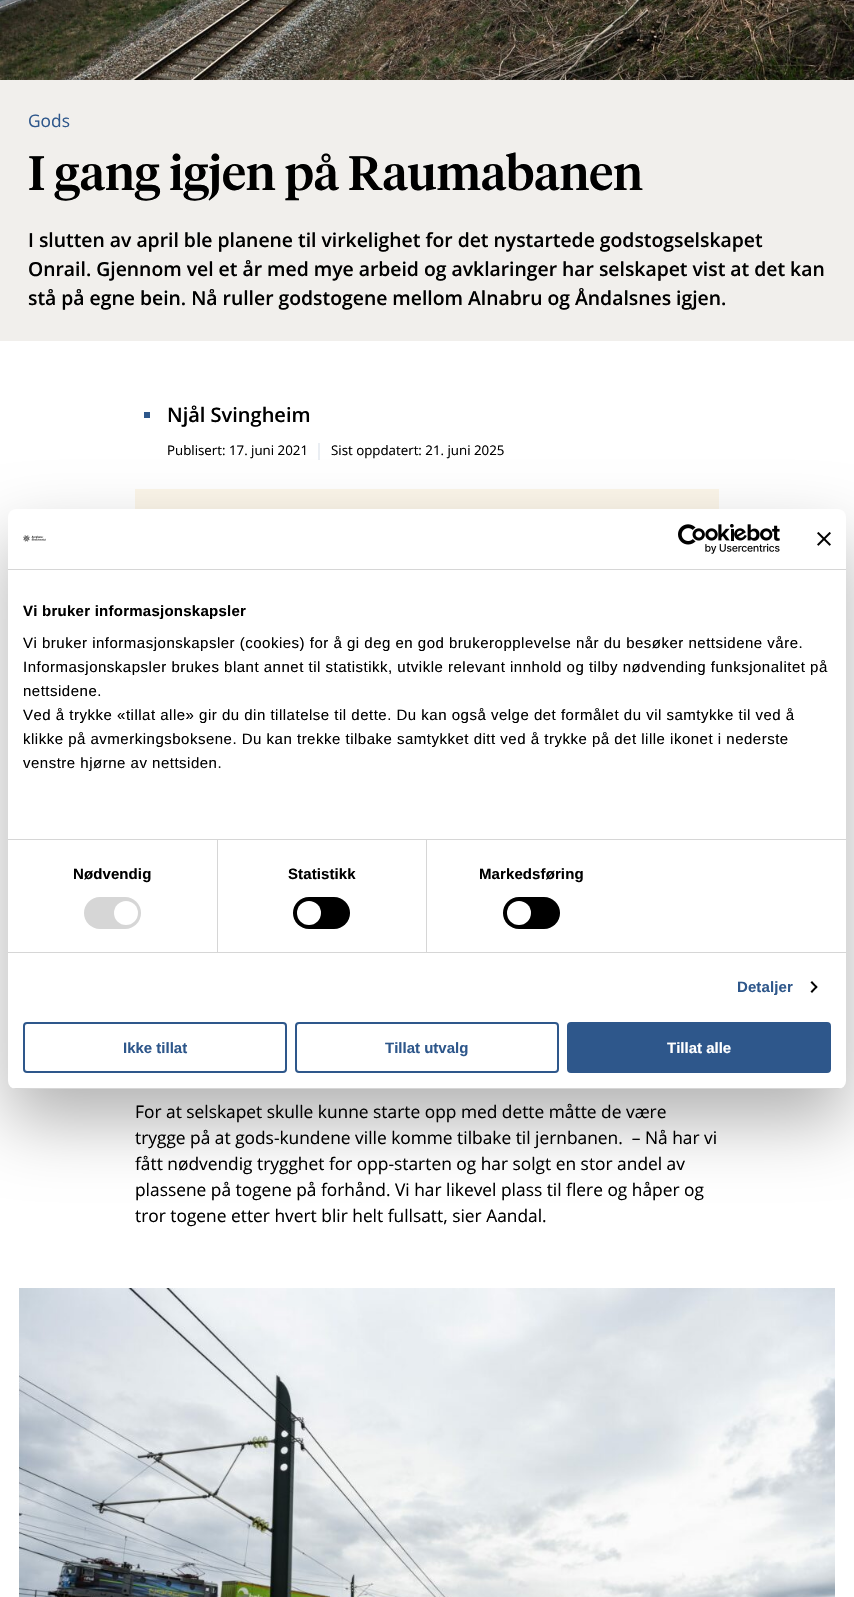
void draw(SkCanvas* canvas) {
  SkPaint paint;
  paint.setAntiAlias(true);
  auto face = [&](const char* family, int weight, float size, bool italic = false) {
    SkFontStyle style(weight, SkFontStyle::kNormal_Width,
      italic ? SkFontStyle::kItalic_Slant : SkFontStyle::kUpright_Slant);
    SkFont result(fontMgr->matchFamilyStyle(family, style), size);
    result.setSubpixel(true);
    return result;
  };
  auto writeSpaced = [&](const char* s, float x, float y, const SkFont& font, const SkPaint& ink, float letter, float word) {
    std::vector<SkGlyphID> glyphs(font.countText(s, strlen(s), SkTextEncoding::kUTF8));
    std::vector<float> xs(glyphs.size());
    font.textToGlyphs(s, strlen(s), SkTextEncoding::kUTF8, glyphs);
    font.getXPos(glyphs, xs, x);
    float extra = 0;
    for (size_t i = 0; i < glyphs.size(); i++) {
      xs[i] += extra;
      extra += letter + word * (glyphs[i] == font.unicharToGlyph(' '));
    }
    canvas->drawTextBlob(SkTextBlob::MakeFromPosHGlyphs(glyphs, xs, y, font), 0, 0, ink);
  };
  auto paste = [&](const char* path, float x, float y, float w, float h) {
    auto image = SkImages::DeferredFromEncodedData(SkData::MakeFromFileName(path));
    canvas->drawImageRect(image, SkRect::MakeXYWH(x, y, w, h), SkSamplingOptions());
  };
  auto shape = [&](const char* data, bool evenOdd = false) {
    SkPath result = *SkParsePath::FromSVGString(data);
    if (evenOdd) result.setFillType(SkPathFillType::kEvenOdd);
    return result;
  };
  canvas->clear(0xffffffff);
  paste("img/1.png", 0, 0, 854, 80);
  {
    const struct { float x, y, w, h; SkColor color; } items[] = {
      {0, 80, 854, 261, 0xfff1efec},
      {144, 412, 6, 6, 0xff2e578b},
      {318, 443, 2, 17, 0xffeaeef3},
      {135, 489, 584, 20, 0xfffcf6e9},
    };
    for (auto [x, y, w, h, color] : items) {
      paint.setColor(color);
      canvas->drawRect(SkRect::MakeXYWH(x, y, w, h), paint);
    }
  }
  paste("img/2.png", 19, 1288, 816, 309);
  paint.setColor(0x4d000000);
  paint.setMaskFilter(SkMaskFilter::MakeBlur(kNormal_SkBlurStyle, 34));
  canvas->drawRoundRect(SkRect::MakeXYWH(8, 541, 838, 580), 8, 8, paint);
  paint.setMaskFilter(nullptr);
  paint.setColor(0xffffffff);
  canvas->drawRoundRect(SkRect::MakeXYWH(8, 509, 838, 580), 8, 8, paint);
  paint.setColor(0xffd6d6d6);
  canvas->drawRect(SkRect::MakeXYWH(8, 569, 838, 1), paint);
  paste("img/3.png", 23, 535, 23, 7);
  paste("img/4.png", 678, 524, 102, 30);
  paste("img/5.png", 817, 532, 14, 14);
  {
    const struct { float x, y, w, h; SkColor color; } items[] = {
      {8, 839, 838, 1, 0xffd6d6d6},
      {8, 952, 838, 1, 0xffd6d6d6},
      {217, 840, 1, 112, 0xffd6d6d6},
    };
    for (auto [x, y, w, h, color] : items) {
      paint.setColor(color);
      canvas->drawRect(SkRect::MakeXYWH(x, y, w, h), paint);
    }
  }
  canvas->drawRoundRect(SkRect::MakeXYWH(84, 897, 57, 32), 16, 16, paint);
  paint.setColor(0xffffffff);
  canvas->drawCircle(126, 913, 12, paint);
  paint.setColor(0xffd6d6d6);
  canvas->drawRect(SkRect::MakeXYWH(426, 840, 1, 112), paint);
  paint.setColor(0xff000000);
  canvas->drawRoundRect(SkRect::MakeXYWH(293, 897, 57, 32), 16, 16, paint);
  paint.setColor(0xffffffff);
  canvas->drawCircle(309, 913, 12, paint);
  paint.setColor(0xff000000);
  canvas->drawRoundRect(SkRect::MakeXYWH(503, 897, 57, 32), 16, 16, paint);
  paint.setColor(0xffffffff);
  canvas->drawCircle(519, 913, 12, paint);
  paint.setColor(0xff000000);
  canvas->drawPath(shape("M812 981L817.5 987L816.5 988.5L810.5 982.5Z"), paint);
  canvas->drawPath(shape("M816.5 985.5L817.5 987L812 993L810.5 991.5Z"), paint);
  canvas->save();
  canvas->clipPath(shape("M16 509H838C842.5 509 846 512.5 846 517V1081C846 1085.5 842.5 1089 838 1089H16C11.5 1089 8 1085.5 8 1081V517C8 512.5 11.5 509 16 509Z"), true);
  paint.setColor(0xffd6d6d6);
  canvas->drawRect(SkRect::MakeXYWH(8, 1088, 838, 1), paint);
  canvas->restore();
  paint.setStroke(true);
  paint.setStrokeWidth(2);
  paint.setColor(0xff2e578b);
  canvas->drawRoundRect(SkRect::MakeXYWH(24, 1023, 262, 49), 3, 3, paint);
  canvas->drawRoundRect(SkRect::MakeXYWH(296, 1023, 262, 49), 3, 3, paint);
  paint.setStroke(false);
  canvas->drawRoundRect(SkRect::MakeXYWH(568, 1023, 262, 49), 3, 3, paint);
  paint.setStroke(true);
  canvas->drawRoundRect(SkRect::MakeXYWH(568, 1023, 262, 49), 3, 3, paint);
  auto f0 = face("Open Sans", 400, 17.35f);
  paint.setStroke(false);
  canvas->drawString("Gods", 28, 127, f0, paint);
  auto f1 = face("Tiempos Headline", 500, 48);
  paint.setColor(0xff000000);
  canvas->drawString("I gang igjen på Raumabanen", 28, 190, f1, paint);
  auto f2 = face("Open Sans", 600, 19.35f);
  {
    const struct { const char* s; float x, y; } items[] = {
      {"I slutten av april ble planene til virkelighet for det nystartede godstogselskapet", 28, 247},
      {"Onrail. Gjennom vel et år med mye arbeid og avklaringer har selskapet vist at det kan", 28, 276},
      {"stå på egne bein. Nå ruller godstogene mellom Alnabru og Åndalsnes igjen.", 28, 305},
    };
    for (auto [s, x, y] : items) {
      canvas->drawString(s, x, y, f2, paint);
    }
  }
  auto f3 = face("Open Sans", 600, 20);
  canvas->drawString("Njål Svingheim", 167, 422, f3, paint);
  auto f4 = face("Open Sans", 400, 13.3f);
  canvas->drawString("Publisert: 17. juni 2021", 167, 455, f4, paint);
  canvas->drawString("Sist oppdatert: 21. juni 2025", 331, 455, f4, paint);
  {
    const struct { const char* s; float x, y; } items[] = {
      {"For at selskapet skulle kunne starte opp med dette måtte de være", 135, 1118},
      {"trygge på at gods-kundene ville komme tilbake til jernbanen.  – Nå har vi", 135, 1144},
      {"fått nødvendig trygghet for opp-starten og har solgt en stor andel av", 135, 1170},
      {"plassene på togene på forhånd. Vi har likevel plass til flere og håper og", 135, 1196},
      {"tror togene etter hvert blir helt fullsatt, sier Aandal.", 135, 1222},
    };
    for (auto [s, x, y] : items) {
      canvas->drawString(s, x, y, f0, paint);
    }
  }
  auto f5 = face("Liberation Sans", 700, 15);
  writeSpaced("Vi bruker informasjonskapsler", 23, 616, f5, paint, 0.25f, 0);
  auto f6 = face("Liberation Sans", 400, 15);
  {
    const struct { const char* s; float x, y; } items[] = {
      {"Vi bruker informasjonskapsler (cookies) for å gi deg en god brukeropplevelse når du besøker nettsidene våre.", 23, 648},
      {"Informasjonskapsler brukes blant annet til statistikk, utvikle relevant innhold og tilby nødvending funksjonalitet på", 23, 672},
      {"nettsidene.", 23, 696},
      {"Ved å trykke «tillat alle» gir du din tillatelse til dette. Du kan også velge det formålet du vil samtykke til ved å", 23, 720},
      {"klikke på avmerkingsboksene. Du kan trekke tilbake samtykket ditt ved å trykke på det lille ikonet i nederste", 23, 744},
      {"venstre hjørne av nettsiden.", 23, 768},
    };
    for (auto [s, x, y] : items) {
      writeSpaced(s, x, y, f6, paint, 0.5f, 0);
    }
  }
  {
    const SkColor colors[] = {0xffffffff, 0xccffffff, 0x00ffffff};
    const float stops[] = {0, 0.5f, 1};
    const SkPoint ends[] = {{421, 839}, {421, 764}};
    paint.setShader(SkGradientShader::MakeLinear(ends, colors, stops, 3, SkTileMode::kClamp));
    paint.setAlpha(255);
  }
  canvas->drawRect(SkRect::MakeXYWH(25, 765, 196, 7), paint);
  paint.setShader(nullptr);
  paint.setColor(0xff000000);
  {
    const struct { const char* s; float x, y; } items[] = {
      {"Nødvendig", 73, 879},
      {"Statistikk", 288, 879},
      {"Markedsføring", 479, 879},
    };
    for (auto [s, x, y] : items) {
      writeSpaced(s, x, y, f5, paint, 0.1f, 0);
    }
  }
  paint.setColor(0xff2e578b);
  writeSpaced("Detaljer", 737, 992, f5, paint, 0.1f, 0);
  canvas->drawString("Ikke tillat", 123, 1053, f5, paint);
  canvas->drawString("Tillat utvalg", 385, 1053, f5, paint);
  paint.setColor(0xffffffff);
  canvas->drawString("Tillat alle", 667, 1053, f5, paint);
}
